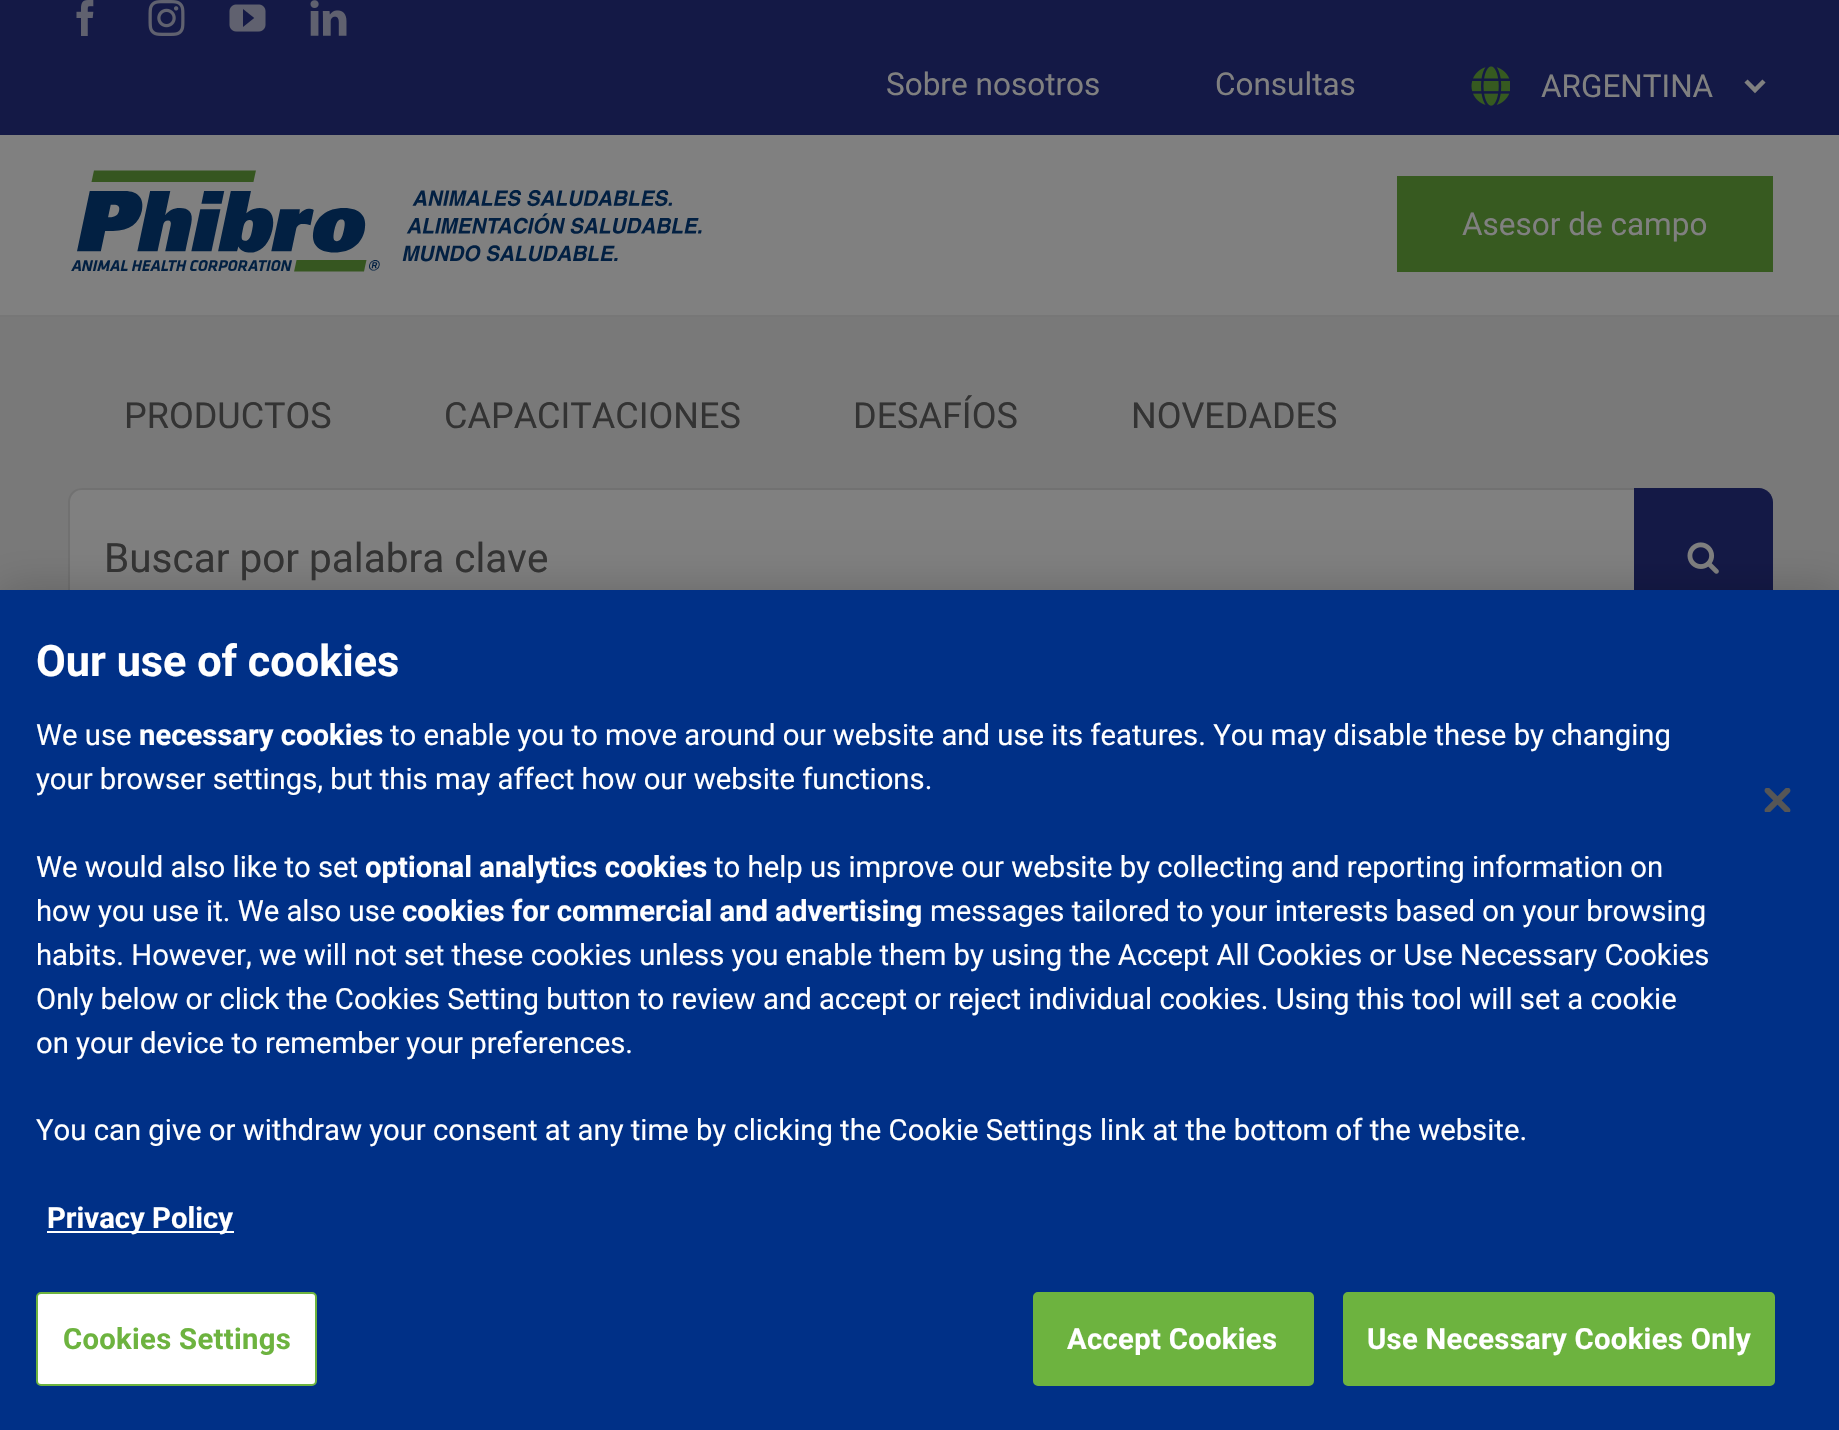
void draw(SkCanvas* canvas) {
  SkPaint paint;
  paint.setAntiAlias(true);
  auto face = [&](const char* family, int weight, float size, bool italic = false) {
    SkFontStyle style(weight, SkFontStyle::kNormal_Width,
      italic ? SkFontStyle::kItalic_Slant : SkFontStyle::kUpright_Slant);
    SkFont result(fontMgr->matchFamilyStyle(family, style), size);
    result.setSubpixel(true);
    return result;
  };
  auto writeSpaced = [&](const char* s, float x, float y, const SkFont& font, const SkPaint& ink, float letter, float word) {
    std::vector<SkGlyphID> glyphs(font.countText(s, strlen(s), SkTextEncoding::kUTF8));
    std::vector<float> xs(glyphs.size());
    font.textToGlyphs(s, strlen(s), SkTextEncoding::kUTF8, glyphs);
    font.getXPos(glyphs, xs, x);
    float extra = 0;
    for (size_t i = 0; i < glyphs.size(); i++) {
      xs[i] += extra;
      extra += letter + word * (glyphs[i] == font.unicharToGlyph(' '));
    }
    canvas->drawTextBlob(SkTextBlob::MakeFromPosHGlyphs(glyphs, xs, y, font), 0, 0, ink);
  };
  auto paste = [&](const char* path, float x, float y, float w, float h) {
    auto image = SkImages::DeferredFromEncodedData(SkData::MakeFromFileName(path));
    canvas->drawImageRect(image, SkRect::MakeXYWH(x, y, w, h), SkSamplingOptions());
  };
  auto shape = [&](const char* data, bool evenOdd = false) {
    SkPath result = *SkParsePath::FromSVGString(data);
    if (evenOdd) result.setFillType(SkPathFillType::kEvenOdd);
    return result;
  };
  canvas->clear(0xff808080);
  paint.setColor(0xff141946);
  canvas->drawRect(SkRect::MakeXYWH(0, 0, 1839, 135), paint);
  paste("img/1.png", 76, 0, 18, 36);
  paste("img/2.png", 148, 0, 37, 36);
  paste("img/3.png", 229, 4, 37, 28);
  paste("img/4.png", 310, 0, 37, 36);
  paste("img/5.png", 1471, 66, 39, 40);
  paint.setStroke(true);
  paint.setStrokeWidth(4.5f);
  paint.setColor(0xff808080);
  canvas->drawPath(shape("M1746 81L1755 90L1764 81"), paint);
  paint.setStroke(false);
  paint.setColor(0xff777777);
  canvas->drawRect(SkRect::MakeXYWH(0, 315, 1839, 2), paint);
  paste("img/6.png", 71, 170, 631, 102);
  paint.setColor(0xff375a20);
  canvas->drawRect(SkRect::MakeXYWH(1397, 176, 376, 96), paint);
  paint.setColor(0xff797979);
  canvas->drawRect(SkRect::MakeXYWH(0, 317, 1839, 273), paint);
  paint.setColor(0xff808080);
  canvas->drawPath(shape("M82 488H1634V628H82C74.5 628 68 621.5 68 614V502C68 494.5 74.5 488 82 488Z"), paint);
  paint.setColor(0xff717171);
  canvas->drawPath(shape("M81 490H1634V488H82C74 488 68 494 68 502V614C68 622 74 628 82 628H1634V626H81C75 626 70 620 70 614V502C70 496 75 490 81 490Z"), paint);
  paint.setColor(0xff141946);
  canvas->drawPath(shape("M1634 488H1759C1766.5 488 1773 494.5 1773 502V614C1773 621.5 1766.5 628 1759 628H1634Z"), paint);
  paste("img/7.png", 1687, 542, 32, 32);
  paint.setColor(0x33000000);
  paint.setMaskFilter(SkMaskFilter::MakeBlur(kNormal_SkBlurStyle, 20));
  canvas->drawRect(SkRect::MakeXYWH(0, 590, 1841, 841), paint);
  paint.setMaskFilter(nullptr);
  paint.setColor(0xff003087);
  canvas->drawRect(SkRect::MakeXYWH(0, 590, 1839, 840), paint);
  paint.setColor(0xffffffff);
  canvas->drawRect(SkRect::MakeXYWH(47, 1231, 187, 2), paint);
  paste("img/8.png", 1764, 788, 27, 24);
  canvas->drawRoundRect(SkRect::MakeXYWH(37, 1293, 279, 92), 4, 4, paint);
  paint.setStroke(true);
  paint.setStrokeWidth(2);
  paint.setColor(0xff6db33f);
  canvas->drawRoundRect(SkRect::MakeXYWH(37, 1293, 279, 92), 4, 4, paint);
  paint.setStroke(false);
  canvas->drawRoundRect(SkRect::MakeXYWH(1034, 1293, 279, 92), 4, 4, paint);
  paint.setStroke(true);
  canvas->drawRoundRect(SkRect::MakeXYWH(1034, 1293, 279, 92), 4, 4, paint);
  paint.setStroke(false);
  canvas->drawRoundRect(SkRect::MakeXYWH(1344, 1293, 430, 92), 4, 4, paint);
  paint.setStroke(true);
  canvas->drawRoundRect(SkRect::MakeXYWH(1344, 1293, 430, 92), 4, 4, paint);
  auto f0 = face("Roboto", 400, 31.5f);
  paint.setStroke(false);
  paint.setColor(0xff808080);
  {
    const struct { const char* s; float x, y; } items[] = {
      {"Sobre nosotros", 886, 95},
      {"Consultas", 1215, 95},
      {"ARGENTINA", 1541, 97},
      {"Asesor de campo", 1462, 235},
    };
    for (auto [s, x, y] : items) {
      canvas->drawString(s, x, y, f0, paint);
    }
  }
  auto f1 = face("Roboto", 400, 36);
  paint.setColor(0xff333333);
  {
    const struct { const char* s; float x, y; } items[] = {
      {"PRODUCTOS", 124, 428},
      {"CAPACITACIONES", 444, 428},
      {"DESAFÍOS", 853, 428},
      {"NOVEDADES", 1131, 428},
    };
    for (auto [s, x, y] : items) {
      canvas->drawString(s, x, y, f1, paint);
    }
  }
  auto f2 = face("Roboto", 400, 40.5f);
  canvas->drawString("Buscar por palabra clave", 104, 572, f2, paint);
  auto f3 = face("Roboto", 700, 43.25f);
  paint.setColor(0xffffffff);
  canvas->drawString("Our use of cookies", 36, 676, f3, paint);
  auto f4 = face("Roboto", 400, 29.27f);
  canvas->drawString("We use", 36, 745, f4, paint);
  auto f5 = face("Roboto", 700, 29.27f);
  canvas->drawString("necessary cookies", 139, 745, f5, paint);
  {
    const struct { const char* s; float x, y; } items[] = {
      {"to enable you to move around our website and use its features. You may disable these by changing", 390, 745},
      {"your browser settings, but this may affect how our website functions.", 36, 789},
      {"We would also like to set", 36, 877},
    };
    for (auto [s, x, y] : items) {
      canvas->drawString(s, x, y, f4, paint);
    }
  }
  canvas->drawString("optional analytics cookies", 365, 877, f5, paint);
  canvas->drawString("to help us improve our website by collecting and reporting information on", 714, 877, f4, paint);
  canvas->drawString("how you use it. We also use", 36, 921, f4, paint);
  canvas->drawString("cookies for commercial and advertising", 402, 921, f5, paint);
  {
    const struct { const char* s; float x, y; } items[] = {
      {"messages tailored to your interests based on your browsing", 930, 921},
      {"habits. However, we will not set these cookies unless you enable them by using the Accept All Cookies or Use Necessary Cookies", 36, 965},
      {"Only below or click the Cookies Setting button to review and accept or reject individual cookies. Using this tool will set a cookie", 36, 1009},
      {"on your device to remember your preferences.", 36, 1053},
      {"You can give or withdraw your consent at any time by clicking the Cookie Settings link at the bottom of the website.", 36, 1140},
    };
    for (auto [s, x, y] : items) {
      canvas->drawString(s, x, y, f4, paint);
    }
  }
  canvas->drawString("Privacy Policy", 47, 1228, f5, paint);
  paint.setColor(0xff6db33f);
  writeSpaced("Cookies Settings", 63, 1349, f5, paint, 0.3f, 0);
  paint.setColor(0xffffffff);
  writeSpaced("Accept Cookies", 1067, 1349, f5, paint, 0.3f, 0);
  writeSpaced("Use Necessary Cookies Only", 1367, 1349, f5, paint, 0.3f, 0);
}
